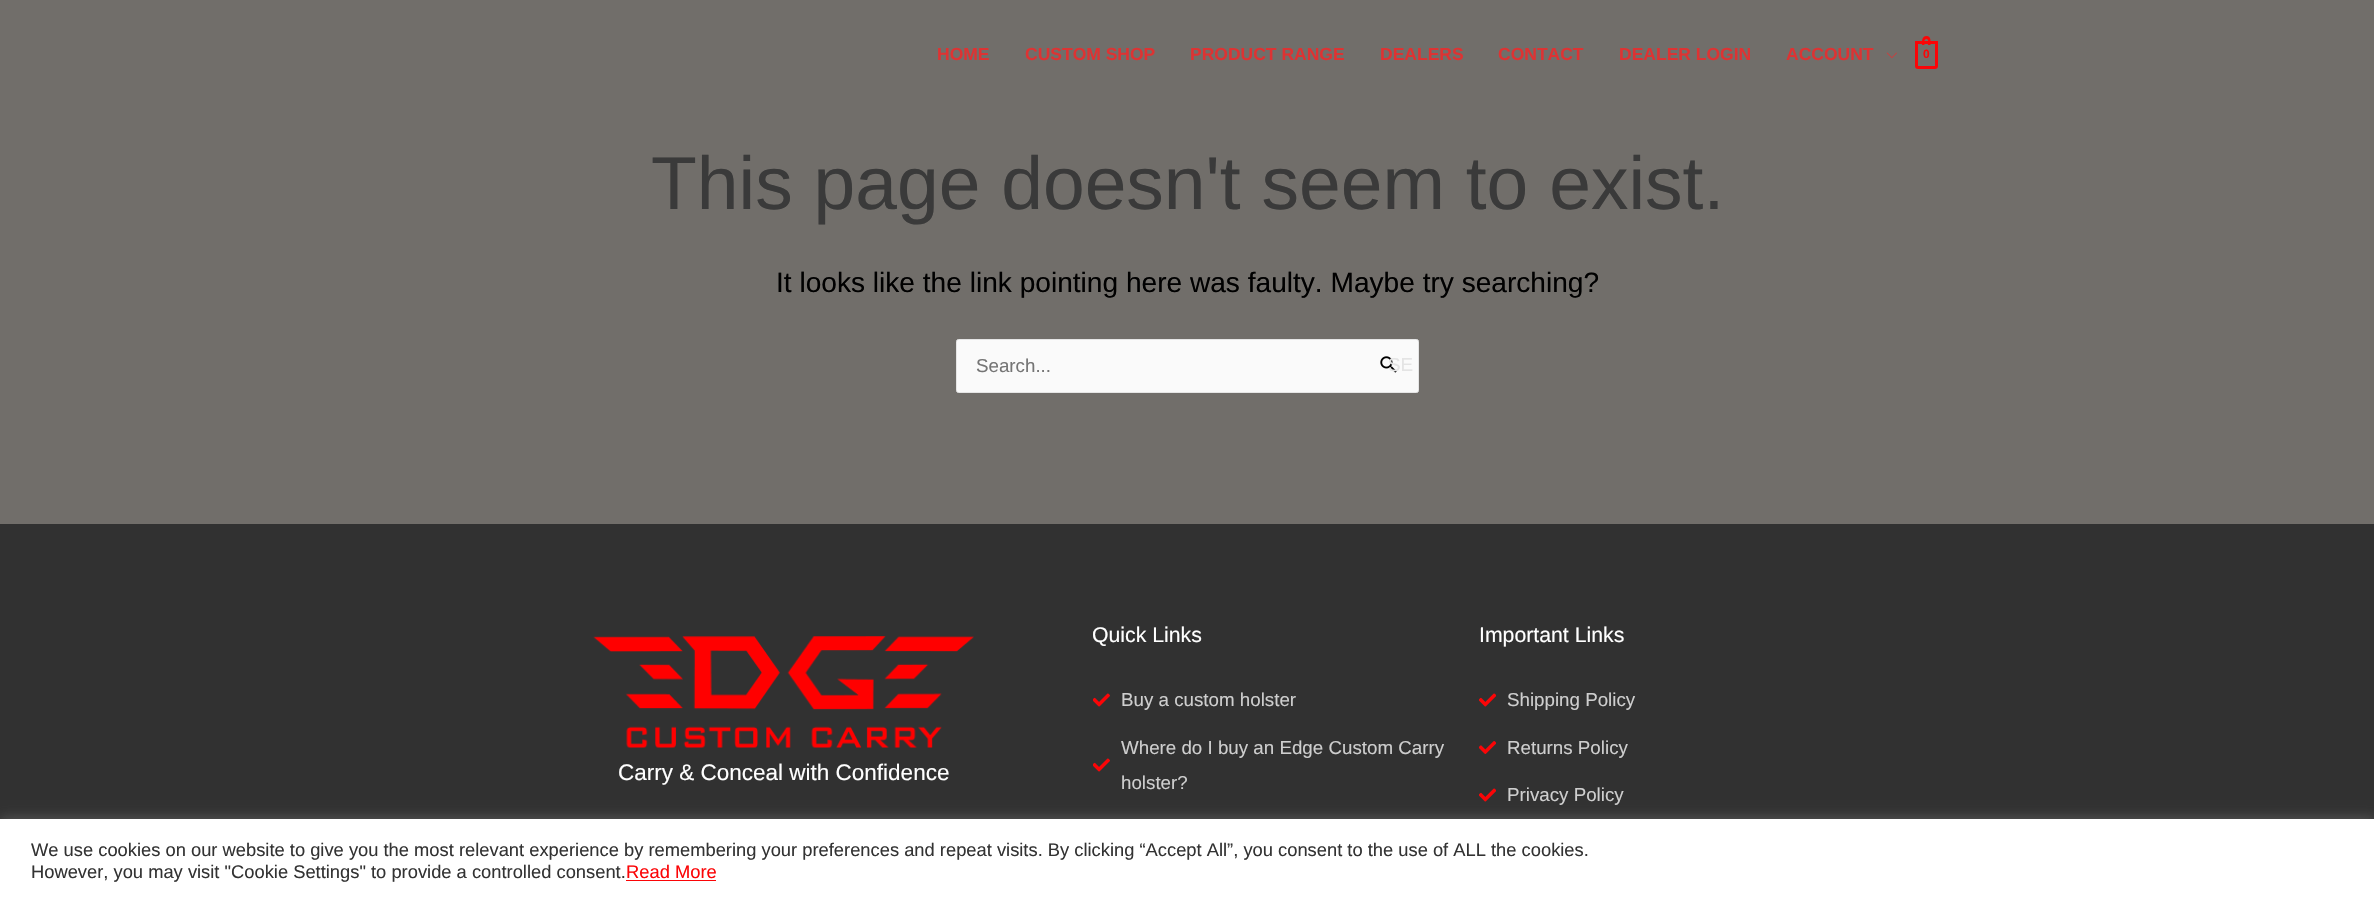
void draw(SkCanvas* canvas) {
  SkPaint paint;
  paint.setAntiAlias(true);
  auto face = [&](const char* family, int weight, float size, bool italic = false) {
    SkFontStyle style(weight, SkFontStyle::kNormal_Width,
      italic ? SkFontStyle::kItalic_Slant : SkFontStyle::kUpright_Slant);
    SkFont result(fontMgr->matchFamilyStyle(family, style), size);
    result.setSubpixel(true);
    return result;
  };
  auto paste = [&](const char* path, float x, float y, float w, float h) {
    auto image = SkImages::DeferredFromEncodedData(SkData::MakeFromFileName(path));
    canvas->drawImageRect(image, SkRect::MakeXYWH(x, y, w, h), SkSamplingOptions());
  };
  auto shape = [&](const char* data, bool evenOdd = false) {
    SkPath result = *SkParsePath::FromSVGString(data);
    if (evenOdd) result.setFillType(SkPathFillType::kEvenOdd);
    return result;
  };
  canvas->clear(0xff716e6a);
  paste("img/1.png", 1886, 52, 11, 6);
  paint.setStroke(true);
  paint.setStrokeWidth(3);
  paint.setColor(0xfffb0507);
  canvas->drawPath(shape("M1916.5 42.5H1936.5V66C1936.5 67 1936 67.5 1935 67.5H1918C1917 67.5 1916.5 67 1916.5 66Z"), paint);
  paint.setStroke(false);
  canvas->drawPath(shape("M1926.5 36C1931.5 36 1930.5 41.5 1930.5 45H1922C1922 41.5 1921.5 36 1926.5 36ZM1926.5 39C1929 39 1928 43.5 1928 45H1924.5C1924.5 43.5 1923.5 39 1926.5 39Z", true), paint);
  paint.setColor(0xfffafafa);
  canvas->drawRoundRect(SkRect::MakeXYWH(956.5f, 339.5f, 462, 53), 2, 2, paint);
  paint.setStroke(true);
  paint.setStrokeWidth(1);
  paint.setColor(0xffe5e5e5);
  canvas->drawRoundRect(SkRect::MakeXYWH(956.5f, 339.5f, 462, 53), 2, 2, paint);
  paste("img/2.png", 1380, 356, 17, 17);
  paint.setStroke(false);
  paint.setColor(0xff313131);
  canvas->drawRect(SkRect::MakeXYWH(0, 524, 2374, 295), paint);
  paste("img/3.png", 593, 636, 381, 112);
  paste("img/4.png", 1093, 693, 17, 14);
  paste("img/4.png", 1093, 758, 17, 14);
  paste("img/5.png", 1479, 693, 17, 14);
  paste("img/6.png", 1479, 741, 17, 13);
  paste("img/5.png", 1479, 788, 17, 14);
  paint.setColor(0x4dacabab);
  paint.setMaskFilter(SkMaskFilter::MakeBlur(kNormal_SkBlurStyle, 6));
  canvas->drawRect(SkRect::MakeXYWH(0, 818, 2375, 83), paint);
  paint.setMaskFilter(nullptr);
  paint.setColor(0xffffffff);
  canvas->drawRect(SkRect::MakeXYWH(0, 819, 2374, 83), paint);
  paint.setColor(0xfffb0507);
  canvas->drawRect(SkRect::MakeXYWH(626, 880, 90, 1), paint);
  auto f0 = face("Liberation Sans", 700, 17.5f);
  paint.setColor(0xffdd3333);
  {
    const struct { const char* s; float x, y; } items[] = {
      {"HOME", 937, 60},
      {"CUSTOM SHOP", 1025, 60},
      {"PRODUCT RANGE", 1190, 60},
      {"DEALERS", 1380, 60},
      {"CONTACT", 1498, 60},
      {"DEALER LOGIN", 1619, 60},
      {"ACCOUNT", 1786, 60},
    };
    for (auto [s, x, y] : items) {
      canvas->drawString(s, x, y, f0, paint);
    }
  }
  auto f1 = face("Liberation Sans", 700, 12);
  paint.setColor(0xfffb0507);
  canvas->drawString("0", 1923, 58, f1, paint);
  auto f2 = face("Liberation Sans", 400, 75);
  paint.setColor(0xff3a3a3a);
  canvas->drawString("This page doesn't seem to exist.", 651, 209, f2, paint);
  auto f3 = face("Liberation Sans", 400, 28.1f);
  paint.setColor(0xff000000);
  canvas->drawString("It looks like the link pointing here was faulty. Maybe try searching?", 776, 292, f3, paint);
  auto f4 = face("Liberation Sans", 400, 18.75f);
  paint.setColor(0xff757575);
  canvas->drawString("Search...", 976, 372, f4, paint);
  paint.setColor(0xffe4e4e4);
  canvas->drawString("SE", 1388, 371, f4, paint);
  auto f5 = face("Liberation Sans", 400, 22.5f);
  paint.setColor(0xffffffff);
  canvas->drawString("Carry & Conceal with Confidence", 618, 780, f5, paint);
  auto f6 = face("Liberation Sans", 400, 21.25f);
  canvas->drawString("Quick Links", 1092, 642, f6, paint);
  paint.setColor(0xffcecece);
  {
    const struct { const char* s; float x, y; } items[] = {
      {"Buy a custom holster", 1121, 706},
      {"Where do I buy an Edge Custom Carry", 1121, 754},
      {"holster?", 1121, 789},
    };
    for (auto [s, x, y] : items) {
      canvas->drawString(s, x, y, f4, paint);
    }
  }
  paint.setColor(0xffffffff);
  canvas->drawString("Important Links", 1479, 642, f6, paint);
  paint.setColor(0xffcecece);
  {
    const struct { const char* s; float x, y; } items[] = {
      {"Shipping Policy", 1507, 706},
      {"Returns Policy", 1507, 754},
      {"Privacy Policy", 1507, 801},
    };
    for (auto [s, x, y] : items) {
      canvas->drawString(s, x, y, f4, paint);
    }
  }
  auto f7 = face("Liberation Sans", 400, 18.33f);
  paint.setColor(0xff333333);
  canvas->drawString("We use cookies on our website to give you the most relevant experience by remembering your preferences and repeat visits. By clicking “Accept All”, you consent to the use of ALL the cookies.", 31, 856, f7, paint);
  canvas->drawString("However, you may visit \"Cookie Settings\" to provide a controlled consent.", 31, 878, f7, paint);
  paint.setColor(0xfffb0507);
  canvas->drawString("Read More", 626, 878, f7, paint);
}
